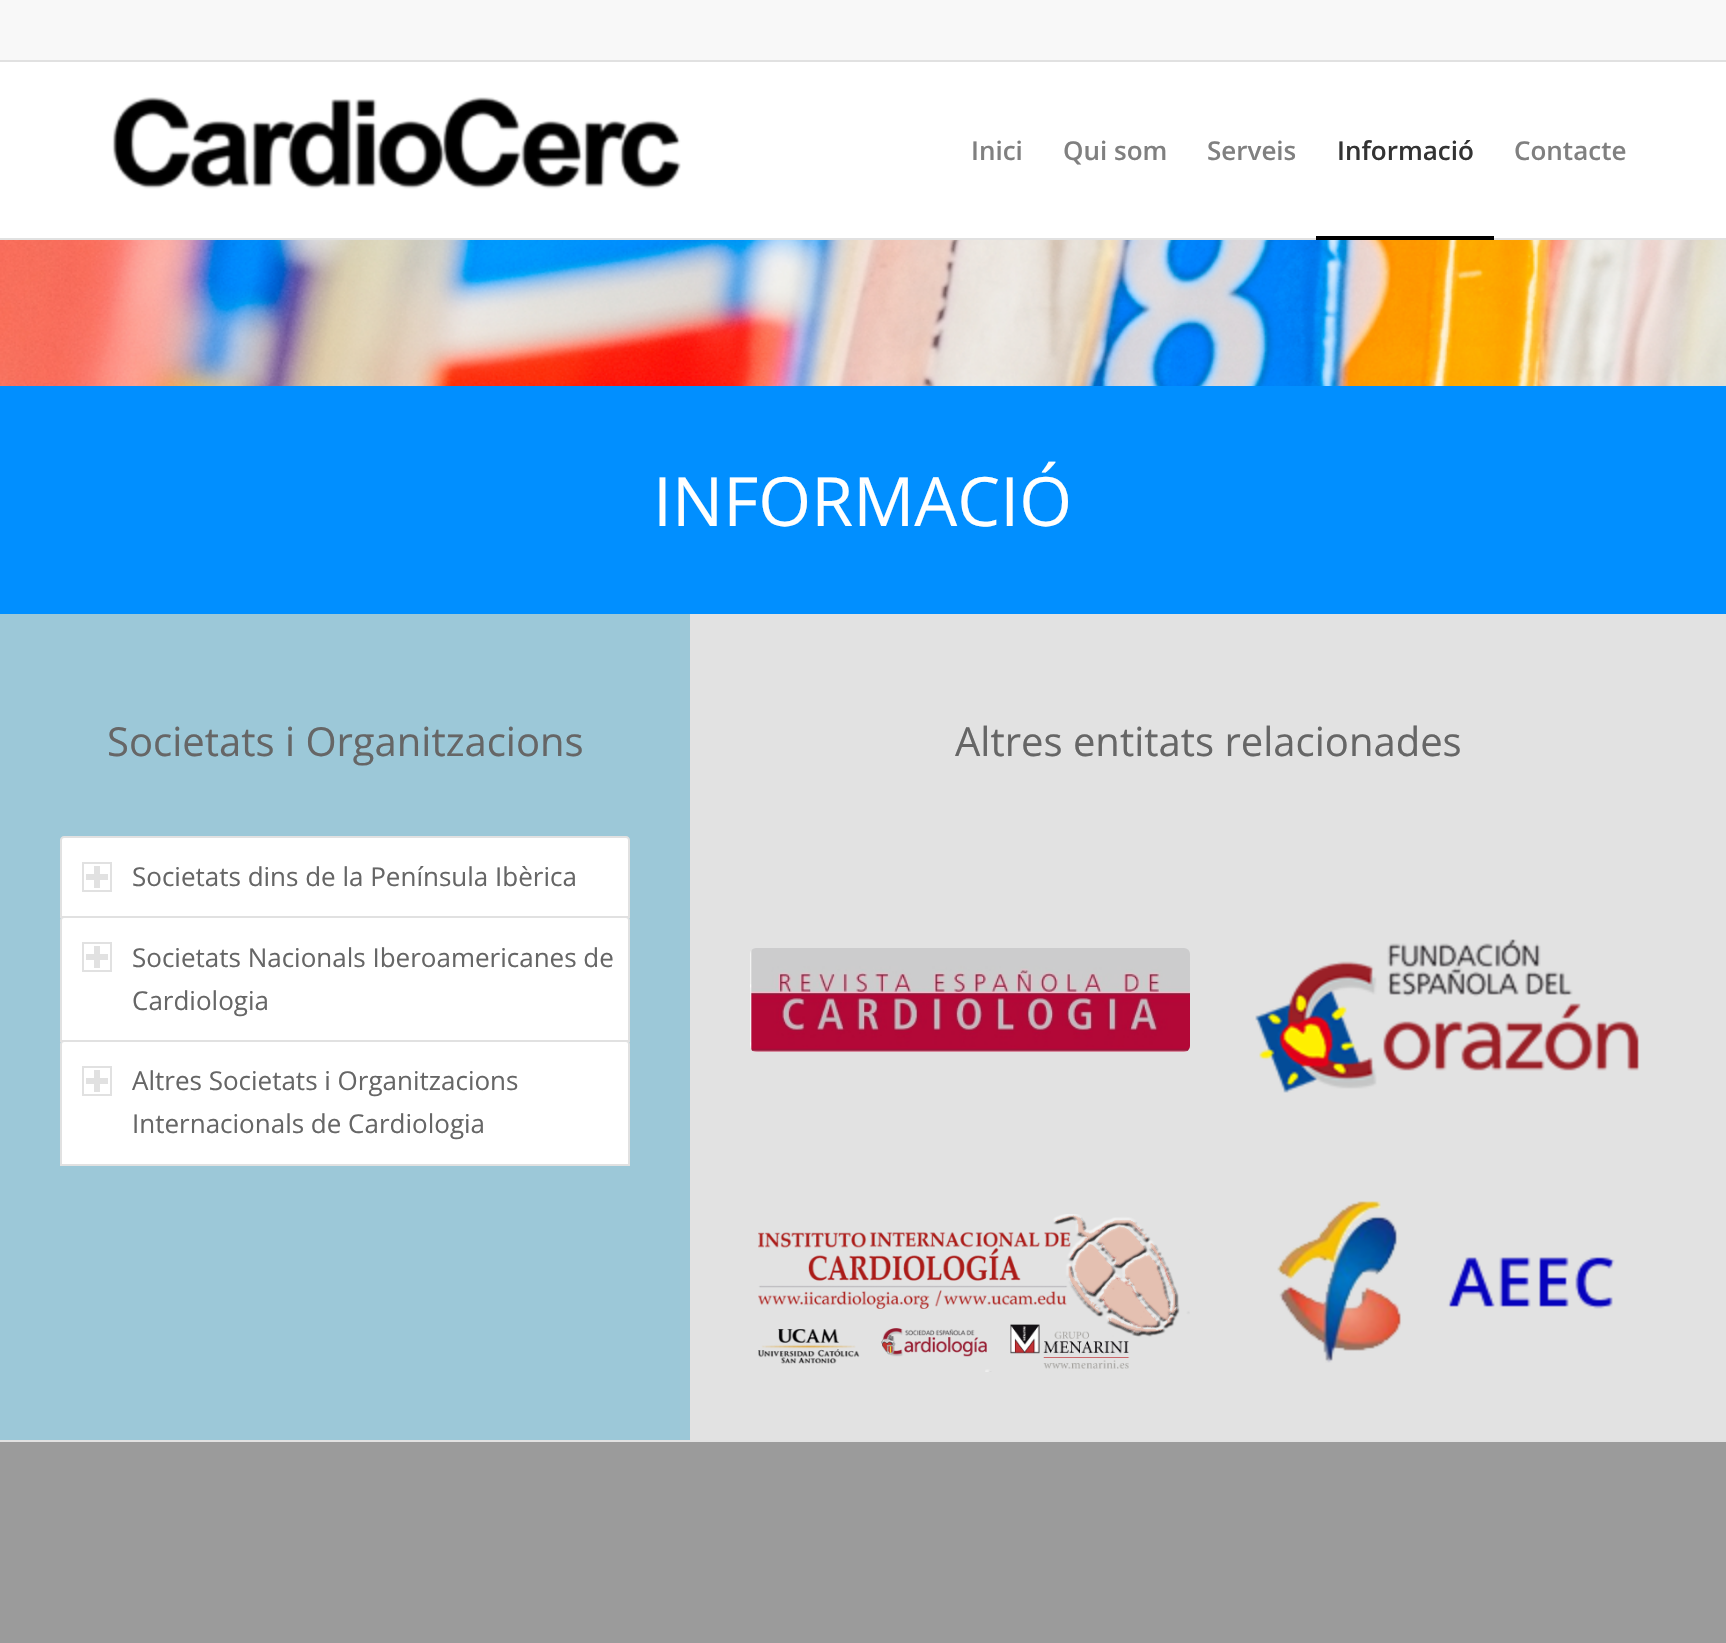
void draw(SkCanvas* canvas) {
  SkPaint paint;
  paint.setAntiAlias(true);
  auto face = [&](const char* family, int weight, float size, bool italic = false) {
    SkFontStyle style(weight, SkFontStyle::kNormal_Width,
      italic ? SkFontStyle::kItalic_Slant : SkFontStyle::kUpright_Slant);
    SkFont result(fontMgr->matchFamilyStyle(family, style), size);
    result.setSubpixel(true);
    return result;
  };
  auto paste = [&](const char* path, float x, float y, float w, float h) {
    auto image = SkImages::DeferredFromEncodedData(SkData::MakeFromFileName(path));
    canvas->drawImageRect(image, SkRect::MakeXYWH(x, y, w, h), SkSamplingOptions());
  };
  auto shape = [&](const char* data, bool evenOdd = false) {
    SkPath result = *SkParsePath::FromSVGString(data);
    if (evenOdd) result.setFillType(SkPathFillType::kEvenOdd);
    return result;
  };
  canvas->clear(0xffffffff);
  {
    const struct { float x, y, w, h; SkColor color; } items[] = {
      {0, 0, 1726, 60, 0xfff8f8f8},
      {0, 60, 1726, 2, 0xffe1e1e1},
      {0, 238, 1726, 2, 0xffe1e1e1},
    };
    for (auto [x, y, w, h, color] : items) {
      paint.setColor(color);
      canvas->drawRect(SkRect::MakeXYWH(x, y, w, h), paint);
    }
  }
  paste("img/1.png", 112, 97, 569, 92);
  paint.setColor(0xff000000);
  canvas->drawRect(SkRect::MakeXYWH(1316, 236, 178, 4), paint);
  paste("img/2.png", 0, 240, 1726, 146);
  paint.setColor(0xff018fff);
  canvas->drawRect(SkRect::MakeXYWH(0, 386, 1726, 228), paint);
  paint.setColor(0xff9cc8d8);
  canvas->drawRect(SkRect::MakeXYWH(0, 614, 690, 826), paint);
  paint.setColor(0xffffffff);
  canvas->drawPath(shape("M64 837H626C627.5 837 629 838.5 629 840V917H61V840C61 838.5 62.5 837 64 837Z"), paint);
  paint.setStroke(true);
  paint.setStrokeWidth(2);
  paint.setColor(0xffe1e1e1);
  canvas->drawPath(shape("M64 837H626C627.5 837 629 838.5 629 840V917H61V840C61 838.5 62.5 837 64 837Z"), paint);
  canvas->drawRect(SkRect::MakeXYWH(83, 863, 28, 28), paint);
  paint.setStroke(false);
  canvas->drawRect(SkRect::MakeXYWH(94, 866, 6, 22), paint);
  canvas->drawRect(SkRect::MakeXYWH(86, 874, 22, 6), paint);
  paint.setColor(0xffffffff);
  canvas->drawPath(shape("M64 917H626C627.5 917 629 918.5 629 920V1041H61V920C61 918.5 62.5 917 64 917Z"), paint);
  paint.setStroke(true);
  paint.setColor(0xffe1e1e1);
  canvas->drawPath(shape("M64 917H626C627.5 917 629 918.5 629 920V1041H61V920C61 918.5 62.5 917 64 917Z"), paint);
  canvas->drawRect(SkRect::MakeXYWH(83, 943, 28, 28), paint);
  paint.setStroke(false);
  canvas->drawRect(SkRect::MakeXYWH(94, 946, 6, 22), paint);
  canvas->drawRect(SkRect::MakeXYWH(86, 954, 22, 6), paint);
  paint.setColor(0xffffffff);
  canvas->drawPath(shape("M64 1041H626C627.5 1041 629 1042.5 629 1044V1165H61V1044C61 1042.5 62.5 1041 64 1041Z"), paint);
  paint.setStroke(true);
  paint.setColor(0xffe1e1e1);
  canvas->drawPath(shape("M64 1041H626C627.5 1041 629 1042.5 629 1044V1165H61V1044C61 1042.5 62.5 1041 64 1041Z"), paint);
  canvas->drawRect(SkRect::MakeXYWH(83, 1067, 28, 28), paint);
  paint.setStroke(false);
  {
    const struct { float x, y, w, h; SkColor color; } items[] = {
      {94, 1070, 6, 22, 0xffe1e1e1},
      {86, 1078, 22, 6, 0xffe1e1e1},
      {690, 614, 1036, 826, 0xffe2e2e2},
    };
    for (auto [x, y, w, h, color] : items) {
      paint.setColor(color);
      canvas->drawRect(SkRect::MakeXYWH(x, y, w, h), paint);
    }
  }
  paste("img/3.png", 750, 948, 440, 104);
  paste("img/4.png", 1255, 939, 384, 154);
  paste("img/5.png", 758, 1214, 432, 158);
  paste("img/6.png", 1277, 1201, 338, 162);
  paint.setColor(0xff9b9b9b);
  canvas->drawRect(SkRect::MakeXYWH(0, 1442, 1726, 201), paint);
  paint.setColor(0xffe1e1e1);
  canvas->drawRect(SkRect::MakeXYWH(0, 1440, 1726, 2), paint);
  auto f0 = face("Open Sans", 600, 26);
  paint.setColor(0xff808080);
  {
    const struct { const char* s; float x, y; } items[] = {
      {"Inici", 971, 160},
      {"Qui som", 1063, 160},
      {"Serveis", 1207, 160},
    };
    for (auto [s, x, y] : items) {
      canvas->drawString(s, x, y, f0, paint);
    }
  }
  paint.setColor(0xff333333);
  canvas->drawString("Informació", 1337, 160, f0, paint);
  paint.setColor(0xff808080);
  canvas->drawString("Contacte", 1514, 160, f0, paint);
  auto f1 = face("Open Sans", 400, 68);
  paint.setColor(0xffffffff);
  canvas->drawString("INFORMACIÓ", 653, 526, f1, paint);
  auto f2 = face("Open Sans", 400, 40);
  paint.setColor(0xff666666);
  canvas->drawString("Societats i Organitzacions", 107, 756, f2, paint);
  auto f3 = face("Open Sans", 400, 26);
  {
    const struct { const char* s; float x, y; } items[] = {
      {"Societats dins de la Península Ibèrica", 132, 886},
      {"Societats Nacionals Iberoamericanes de", 132, 967},
      {"Cardiologia", 132, 1010},
      {"Altres Societats i Organitzacions", 132, 1090},
      {"Internacionals de Cardiologia", 132, 1133},
    };
    for (auto [s, x, y] : items) {
      canvas->drawString(s, x, y, f3, paint);
    }
  }
  canvas->drawString("Altres entitats relacionades", 955, 756, f2, paint);
}
